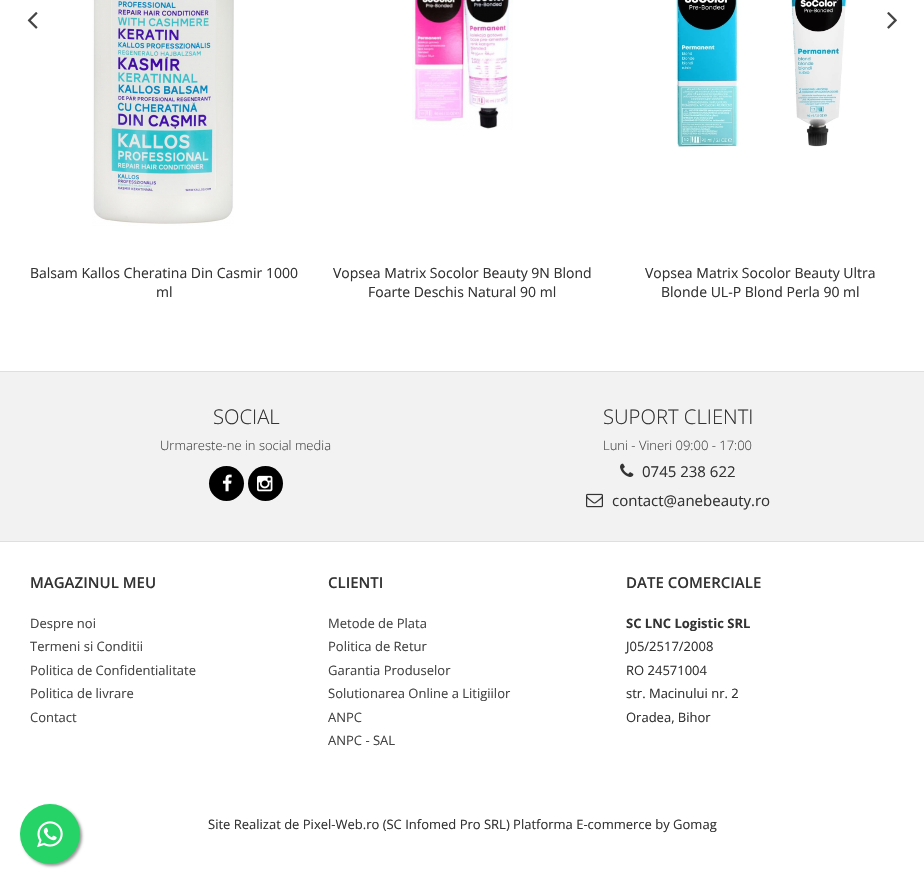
void draw(SkCanvas* canvas) {
  SkPaint paint;
  paint.setAntiAlias(true);
  auto face = [&](const char* family, int weight, float size, bool italic = false) {
    SkFontStyle style(weight, SkFontStyle::kNormal_Width,
      italic ? SkFontStyle::kItalic_Slant : SkFontStyle::kUpright_Slant);
    SkFont result(fontMgr->matchFamilyStyle(family, style), size);
    result.setSubpixel(true);
    return result;
  };
  auto paste = [&](const char* path, float x, float y, float w, float h) {
    auto image = SkImages::DeferredFromEncodedData(SkData::MakeFromFileName(path));
    canvas->drawImageRect(image, SkRect::MakeXYWH(x, y, w, h), SkSamplingOptions());
  };
  canvas->clear(0xffffffff);
  paste("img/1.png", 27, 12, 11, 17);
  paste("img/2.png", 887, 12, 10, 17);
  paste("img/3.png", 92, 0, 142, 226);
  paste("img/4.png", 412, 0, 101, 130);
  paste("img/5.png", 676, 0, 171, 147);
  {
    const struct { float x, y, w, h; SkColor color; } items[] = {
      {0, 372, 924, 169, 0xfff2f2f2},
      {0, 371, 924, 1, 0xffdfdfdf},
      {0, 541, 924, 1, 0xffdfdfdf},
    };
    for (auto [x, y, w, h, color] : items) {
      paint.setColor(color);
      canvas->drawRect(SkRect::MakeXYWH(x, y, w, h), paint);
    }
  }
  paint.setColor(0xff000000);
  canvas->drawCircle(226.5f, 483.5f, 17.5f, paint);
  paste("img/6.png", 222, 474, 10, 18);
  canvas->drawCircle(265.5f, 483.5f, 17.5f, paint);
  paste("img/7.png", 257, 475, 16, 17);
  paste("img/8.png", 620, 463, 14, 14);
  paste("img/9.png", 586, 493, 17, 15);
  paint.setColor(0xff999999);
  paint.setMaskFilter(SkMaskFilter::MakeBlur(kNormal_SkBlurStyle, 1.5f));
  canvas->drawRoundRect(SkRect::MakeXYWH(22, 806, 60, 60), 30, 30, paint);
  paint.setMaskFilter(nullptr);
  paint.setColor(0xff25d366);
  canvas->drawCircle(50, 834, 30, paint);
  paste("img/10.png", 37, 821, 26, 27);
  auto f0 = face("Open Sans", 400, 14);
  paint.setColor(0xff333333);
  {
    const struct { const char* s; float x, y; } items[] = {
      {"Balsam Kallos Cheratina Din Casmir 1000", 30, 278},
      {"ml", 156, 297},
      {"Vopsea Matrix Socolor Beauty 9N Blond", 333, 278},
      {"Foarte Deschis Natural 90 ml", 368, 297},
      {"Vopsea Matrix Socolor Beauty Ultra", 645, 278},
      {"Blonde UL-P Blond Perla 90 ml", 661, 297},
    };
    for (auto [s, x, y] : items) {
      canvas->drawString(s, x, y, f0, paint);
    }
  }
  auto f1 = face("Open Sans", 300, 20.25f);
  canvas->drawString("SOCIAL", 213, 424, f1, paint);
  auto f2 = face("Open Sans", 300, 13);
  paint.setColor(0xff444444);
  canvas->drawString("Urmareste-ne in social media", 160, 450, f2, paint);
  paint.setColor(0xff333333);
  canvas->drawString("SUPORT CLIENTI", 603, 424, f1, paint);
  paint.setColor(0xff444444);
  canvas->drawString("Luni - Vineri 09:00 - 17:00", 603, 450, f2, paint);
  auto f3 = face("Open Sans", 400, 15);
  paint.setColor(0xff333333);
  canvas->drawString("0745 238 622", 642, 477, f3, paint);
  canvas->drawString("contact@anebeauty.ro", 612, 506, f3, paint);
  auto f4 = face("Open Sans", 600, 15);
  canvas->drawString("MAGAZINUL MEU", 30, 588, f4, paint);
  auto f5 = face("Open Sans", 400, 13);
  paint.setColor(0xff444444);
  {
    const struct { const char* s; float x, y; } items[] = {
      {"Despre noi", 30, 628},
      {"Termeni si Conditii", 30, 651},
      {"Politica de Confidentialitate", 30, 675},
      {"Politica de livrare", 30, 698},
      {"Contact", 30, 722},
    };
    for (auto [s, x, y] : items) {
      canvas->drawString(s, x, y, f5, paint);
    }
  }
  paint.setColor(0xff333333);
  canvas->drawString("CLIENTI", 328, 588, f4, paint);
  paint.setColor(0xff444444);
  {
    const struct { const char* s; float x, y; } items[] = {
      {"Metode de Plata", 328, 628},
      {"Politica de Retur", 328, 651},
      {"Garantia Produselor", 328, 675},
      {"Solutionarea Online a Litigiilor", 328, 698},
      {"ANPC", 328, 722},
      {"ANPC - SAL", 328, 745},
    };
    for (auto [s, x, y] : items) {
      canvas->drawString(s, x, y, f5, paint);
    }
  }
  paint.setColor(0xff333333);
  canvas->drawString("DATE COMERCIALE", 626, 588, f4, paint);
  auto f6 = face("Open Sans", 700, 13);
  canvas->drawString("SC LNC Logistic SRL", 626, 628, f6, paint);
  {
    const struct { const char* s; float x, y; } items[] = {
      {"J05/2517/2008", 626, 651},
      {"RO 24571004", 626, 675},
      {"str. Macinului nr. 2", 626, 698},
      {"Oradea, Bihor", 626, 722},
      {"Site Realizat de Pixel-Web.ro (SC Infomed Pro SRL) Platforma E-commerce by Gomag", 208, 829},
    };
    for (auto [s, x, y] : items) {
      canvas->drawString(s, x, y, f5, paint);
    }
  }
}
